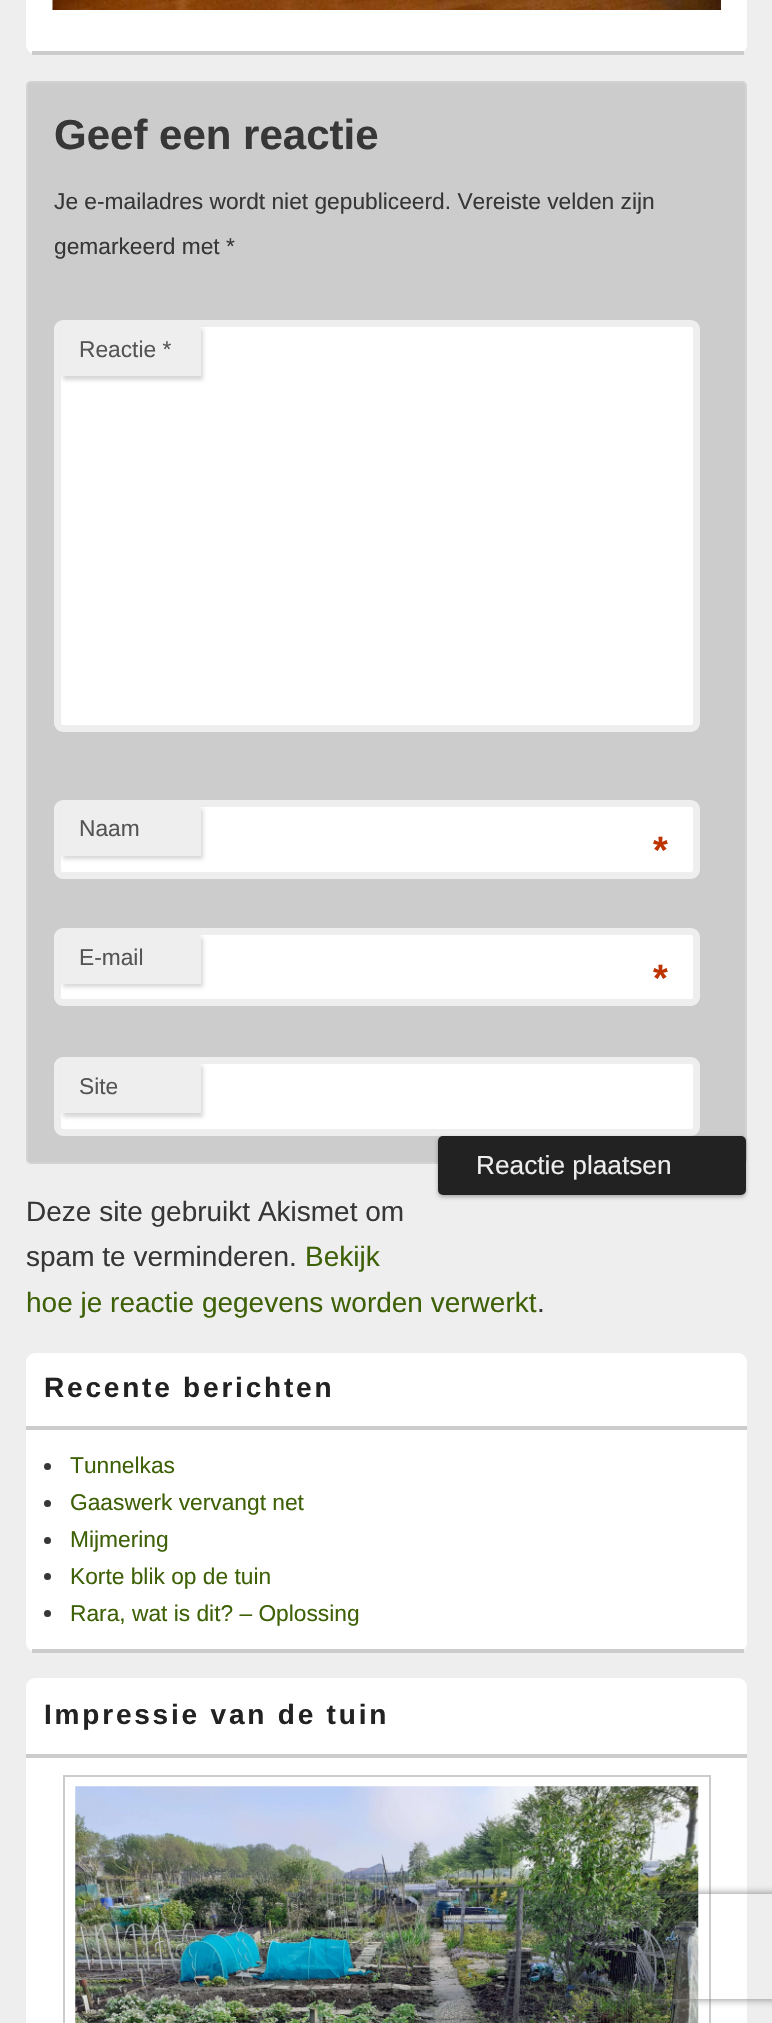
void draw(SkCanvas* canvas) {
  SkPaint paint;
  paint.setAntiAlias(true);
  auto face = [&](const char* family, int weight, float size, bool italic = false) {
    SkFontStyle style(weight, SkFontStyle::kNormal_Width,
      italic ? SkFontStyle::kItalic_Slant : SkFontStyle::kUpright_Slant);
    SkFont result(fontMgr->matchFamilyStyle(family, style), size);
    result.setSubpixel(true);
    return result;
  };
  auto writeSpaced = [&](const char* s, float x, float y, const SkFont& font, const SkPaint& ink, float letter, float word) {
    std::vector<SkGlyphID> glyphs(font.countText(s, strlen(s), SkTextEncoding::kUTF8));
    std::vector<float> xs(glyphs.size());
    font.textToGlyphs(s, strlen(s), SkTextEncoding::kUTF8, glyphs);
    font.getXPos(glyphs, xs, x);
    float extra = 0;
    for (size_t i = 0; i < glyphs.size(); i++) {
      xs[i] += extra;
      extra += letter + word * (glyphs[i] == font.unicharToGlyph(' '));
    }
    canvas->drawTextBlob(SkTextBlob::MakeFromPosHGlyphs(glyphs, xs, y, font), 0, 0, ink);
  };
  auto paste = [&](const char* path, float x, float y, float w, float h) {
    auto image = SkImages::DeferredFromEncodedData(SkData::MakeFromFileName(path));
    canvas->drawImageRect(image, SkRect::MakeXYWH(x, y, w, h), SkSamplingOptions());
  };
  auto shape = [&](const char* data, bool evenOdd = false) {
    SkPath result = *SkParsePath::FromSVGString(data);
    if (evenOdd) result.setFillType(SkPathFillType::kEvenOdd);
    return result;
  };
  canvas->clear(0xffeeeeee);
  paint.setColor(0xffffffff);
  canvas->drawRoundRect(SkRect::MakeXYWH(26, -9, 721, 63), 9, 9, paint);
  paint.setColor(0xffcccccc);
  canvas->drawRect(SkRect::MakeXYWH(32, 51, 712, 4), paint);
  paste("img/1.png", 52, 0, 669, 10);
  canvas->drawRoundRect(SkRect::MakeXYWH(27, 82, 719, 1081), 4, 4, paint);
  paint.setStroke(true);
  paint.setStrokeWidth(2);
  paint.setColor(0xffd3d3d3);
  canvas->drawRoundRect(SkRect::MakeXYWH(27, 82, 719, 1081), 4, 4, paint);
  paint.setStroke(false);
  paint.setColor(0xffffffff);
  canvas->drawRoundRect(SkRect::MakeXYWH(57.5f, 323.5f, 639, 405), 5.5f, 5.5f, paint);
  paint.setStroke(true);
  paint.setStrokeWidth(7);
  paint.setColor(0xffeeeeee);
  canvas->drawRoundRect(SkRect::MakeXYWH(57.5f, 323.5f, 639, 405), 5.5f, 5.5f, paint);
  paint.setStroke(false);
  paint.setColor(0xcccccccc);
  paint.setMaskFilter(SkMaskFilter::MakeBlur(kNormal_SkBlurStyle, 2));
  canvas->drawRect(SkRect::MakeXYWH(63, 329, 140, 51), paint);
  paint.setMaskFilter(nullptr);
  paint.setColor(0xffeeeeee);
  canvas->drawRect(SkRect::MakeXYWH(61, 326, 140, 50), paint);
  paint.setColor(0xffffffff);
  canvas->drawRoundRect(SkRect::MakeXYWH(57.5f, 803.5f, 639, 72), 5.5f, 5.5f, paint);
  paint.setStroke(true);
  paint.setColor(0xffeeeeee);
  canvas->drawRoundRect(SkRect::MakeXYWH(57.5f, 803.5f, 639, 72), 5.5f, 5.5f, paint);
  paint.setStroke(false);
  paint.setColor(0xcccccccc);
  paint.setMaskFilter(SkMaskFilter::MakeBlur(kNormal_SkBlurStyle, 2));
  canvas->drawRect(SkRect::MakeXYWH(63, 809, 140, 50), paint);
  paint.setMaskFilter(nullptr);
  paint.setColor(0xffeeeeee);
  canvas->drawRect(SkRect::MakeXYWH(61, 806, 140, 50), paint);
  paint.setColor(0xffffffff);
  canvas->drawRoundRect(SkRect::MakeXYWH(57.5f, 931.5f, 639, 71), 5.5f, 5.5f, paint);
  paint.setStroke(true);
  paint.setColor(0xffeeeeee);
  canvas->drawRoundRect(SkRect::MakeXYWH(57.5f, 931.5f, 639, 71), 5.5f, 5.5f, paint);
  paint.setStroke(false);
  paint.setColor(0xcccccccc);
  paint.setMaskFilter(SkMaskFilter::MakeBlur(kNormal_SkBlurStyle, 2));
  canvas->drawRect(SkRect::MakeXYWH(63, 938, 140, 49), paint);
  paint.setMaskFilter(nullptr);
  paint.setColor(0xffeeeeee);
  canvas->drawRect(SkRect::MakeXYWH(61, 935, 140, 49), paint);
  paint.setColor(0xffffffff);
  canvas->drawRoundRect(SkRect::MakeXYWH(57.5f, 1060.5f, 639, 72), 5.5f, 5.5f, paint);
  paint.setStroke(true);
  paint.setColor(0xffeeeeee);
  canvas->drawRoundRect(SkRect::MakeXYWH(57.5f, 1060.5f, 639, 72), 5.5f, 5.5f, paint);
  paint.setStroke(false);
  paint.setColor(0xcccccccc);
  paint.setMaskFilter(SkMaskFilter::MakeBlur(kNormal_SkBlurStyle, 2));
  canvas->drawRect(SkRect::MakeXYWH(63, 1066, 140, 51), paint);
  paint.setMaskFilter(nullptr);
  paint.setColor(0xffeeeeee);
  canvas->drawRect(SkRect::MakeXYWH(61, 1063, 140, 50), paint);
  paint.setColor(0x4d000000);
  paint.setMaskFilter(SkMaskFilter::MakeBlur(kNormal_SkBlurStyle, 2));
  canvas->drawRoundRect(SkRect::MakeXYWH(438, 1138, 308, 59), 5, 5, paint);
  paint.setMaskFilter(nullptr);
  paint.setColor(0xff222222);
  canvas->drawRoundRect(SkRect::MakeXYWH(438, 1136, 308, 59), 5, 5, paint);
  paint.setColor(0xffffffff);
  canvas->drawRoundRect(SkRect::MakeXYWH(26, 1353, 721, 299), 9, 9, paint);
  paint.setColor(0xffcccccc);
  canvas->drawRect(SkRect::MakeXYWH(32, 1649, 712, 4), paint);
  canvas->drawRect(SkRect::MakeXYWH(26, 1426, 721, 4), paint);
  paint.setColor(0xff373737);
  canvas->drawCircle(47.5f, 1466.5f, 3.5f, paint);
  canvas->drawCircle(47.5f, 1503.5f, 3.5f, paint);
  canvas->drawCircle(47.5f, 1540.5f, 3.5f, paint);
  canvas->drawCircle(47.5f, 1576.5f, 3.5f, paint);
  canvas->drawCircle(47.5f, 1613.5f, 3.5f, paint);
  paint.setColor(0xffffffff);
  canvas->drawRoundRect(SkRect::MakeXYWH(26, 1678, 721, 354), 9, 9, paint);
  paint.setColor(0xffcccccc);
  canvas->drawRect(SkRect::MakeXYWH(26, 1754, 721, 4), paint);
  paint.setStroke(true);
  paint.setStrokeWidth(2);
  canvas->drawRect(SkRect::MakeXYWH(64, 1776, 646, 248), paint);
  paste("img/2.png", 75, 1786, 624, 237);
  canvas->save();
  canvas->clipPath(shape("M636 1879H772V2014H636ZM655 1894H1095C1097 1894 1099 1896 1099 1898V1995C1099 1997 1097 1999 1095 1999H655C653 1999 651 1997 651 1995V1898C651 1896 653 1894 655 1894Z", true), true);
  paint.setStroke(false);
  paint.setColor(0xff808080);
  paint.setMaskFilter(SkMaskFilter::MakeBlur(kNormal_SkBlurStyle, 4.5f));
  canvas->drawRoundRect(SkRect::MakeXYWH(651, 1894, 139, 105), 4, 4, paint);
  paint.setMaskFilter(nullptr);
  canvas->restore();
  auto f0 = face("Liberation Sans", 700, 42);
  paint.setColor(0xff373737);
  canvas->drawString("Geef een reactie", 54, 149, f0, paint);
  auto f1 = face("Liberation Sans", 400, 22.75f);
  canvas->drawString("Je e-mailadres wordt niet gepubliceerd. Vereiste velden zijn", 54, 209, f1, paint);
  canvas->drawString("gemarkeerd met *", 54, 254, f1, paint);
  paint.setColor(0xff555555);
  canvas->drawString("Reactie *", 79, 357, f1, paint);
  canvas->drawString("Naam", 79, 836, f1, paint);
  auto f2 = face("Liberation Sans", 700, 38);
  paint.setColor(0xffbd3500);
  canvas->drawString("*", 653, 863, f2, paint);
  paint.setColor(0xff555555);
  canvas->drawString("E-mail", 79, 965, f1, paint);
  paint.setColor(0xffbd3500);
  canvas->drawString("*", 653, 991, f2, paint);
  paint.setColor(0xff555555);
  canvas->drawString("Site", 79, 1094, f1, paint);
  auto f3 = face("Liberation Sans", 400, 26.25f);
  paint.setColor(0xffeeeeee);
  canvas->drawString("Reactie plaatsen", 476, 1174, f3, paint);
  auto f4 = face("Liberation Sans", 400, 28);
  paint.setColor(0xff373737);
  canvas->drawString("Deze site gebruikt Akismet om", 26, 1221, f4, paint);
  canvas->drawString("spam te verminderen.", 26, 1266, f4, paint);
  paint.setColor(0xff3e6107);
  canvas->drawString("Bekijk", 305, 1266, f4, paint);
  canvas->drawString("hoe je reactie gegevens worden verwerkt", 26, 1312, f4, paint);
  paint.setColor(0xff373737);
  canvas->drawString(".", 537, 1312, f4, paint);
  auto f5 = face("Liberation Sans", 700, 28);
  paint.setColor(0xff222222);
  writeSpaced("Recente berichten", 44, 1397, f5, paint, 2.8f, 0);
  paint.setColor(0xff3e6107);
  {
    const struct { const char* s; float x, y; } items[] = {
      {"Tunnelkas", 70, 1473},
      {"Gaaswerk vervangt net", 70, 1510},
      {"Mijmering", 70, 1547},
      {"Korte blik op de tuin", 70, 1584},
      {"Rara, wat is dit? – Oplossing", 70, 1621},
    };
    for (auto [s, x, y] : items) {
      canvas->drawString(s, x, y, f1, paint);
    }
  }
  paint.setColor(0xff222222);
  writeSpaced("Impressie van de tuin", 44, 1724, f5, paint, 2.8f, 0);
}
